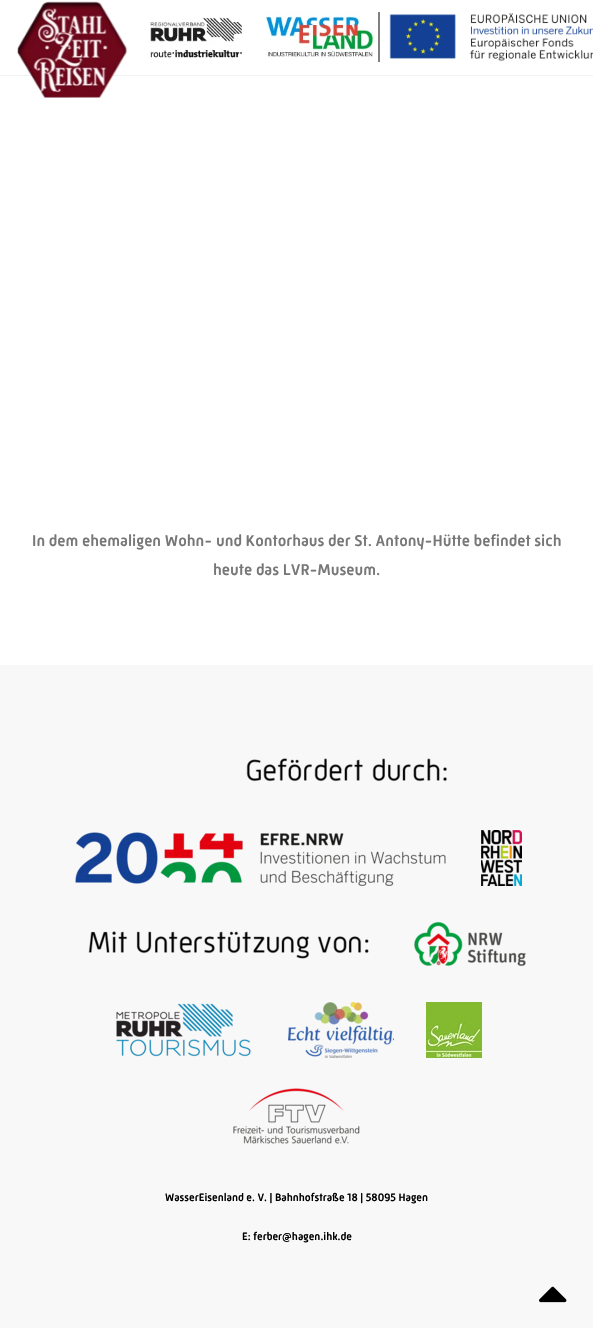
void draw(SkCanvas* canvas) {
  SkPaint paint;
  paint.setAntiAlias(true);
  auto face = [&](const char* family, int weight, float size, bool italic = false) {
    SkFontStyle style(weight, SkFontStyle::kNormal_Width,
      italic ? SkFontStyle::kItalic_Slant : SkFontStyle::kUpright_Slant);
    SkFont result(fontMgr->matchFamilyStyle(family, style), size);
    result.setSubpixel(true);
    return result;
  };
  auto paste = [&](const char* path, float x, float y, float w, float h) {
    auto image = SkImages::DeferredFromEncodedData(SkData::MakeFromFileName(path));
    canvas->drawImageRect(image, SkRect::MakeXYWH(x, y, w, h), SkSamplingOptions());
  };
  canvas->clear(0xffffffff);
  paint.setColor(0xfff2f2f2);
  canvas->drawRect(SkRect::MakeXYWH(0, 75, 593, 1), paint);
  paste("img/1.png", 17, 1, 111, 97);
  paint.setColor(0xff808080);
  canvas->drawRect(SkRect::MakeXYWH(378, 12, 2, 50), paint);
  paste("img/2.png", 150, 12, 225, 46);
  paste("img/3.png", 389, 13, 204, 49);
  paint.setColor(0xfff8f8f8);
  canvas->drawRect(SkRect::MakeXYWH(0, 665, 593, 663), paint);
  paste("img/4.png", 246, 758, 201, 24);
  paste("img/5.png", 75, 832, 371, 54);
  paste("img/6.png", 481, 830, 41, 56);
  paste("img/7.png", 88, 931, 281, 28);
  paste("img/8.png", 414, 921, 112, 46);
  paste("img/9.png", 116, 1003, 135, 54);
  paste("img/10.png", 288, 1002, 106, 56);
  paste("img/11.png", 426, 1002, 56, 56);
  paste("img/12.png", 233, 1088, 127, 56);
  paste("img/13.png", 539, 1286, 28, 17);
  auto f0 = face("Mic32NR", 500, 16);
  paint.setColor(0xff777777);
  canvas->drawString("In dem ehemaligen Wohn- und Kontorhaus der St. Antony-Hütte befindet sich", 32, 546, f0, paint);
  canvas->drawString("heute das LVR-Museum.", 213, 575, f0, paint);
  auto f1 = face("Mic32NR", 500, 11);
  paint.setColor(0xff000000);
  canvas->drawString("WasserEisenland e. V. | Bahnhofstraße 18 | 58095 Hagen", 165, 1201, f1, paint);
  canvas->drawString("E: ferber@hagen.ihk.de", 242, 1240, f1, paint);
}
